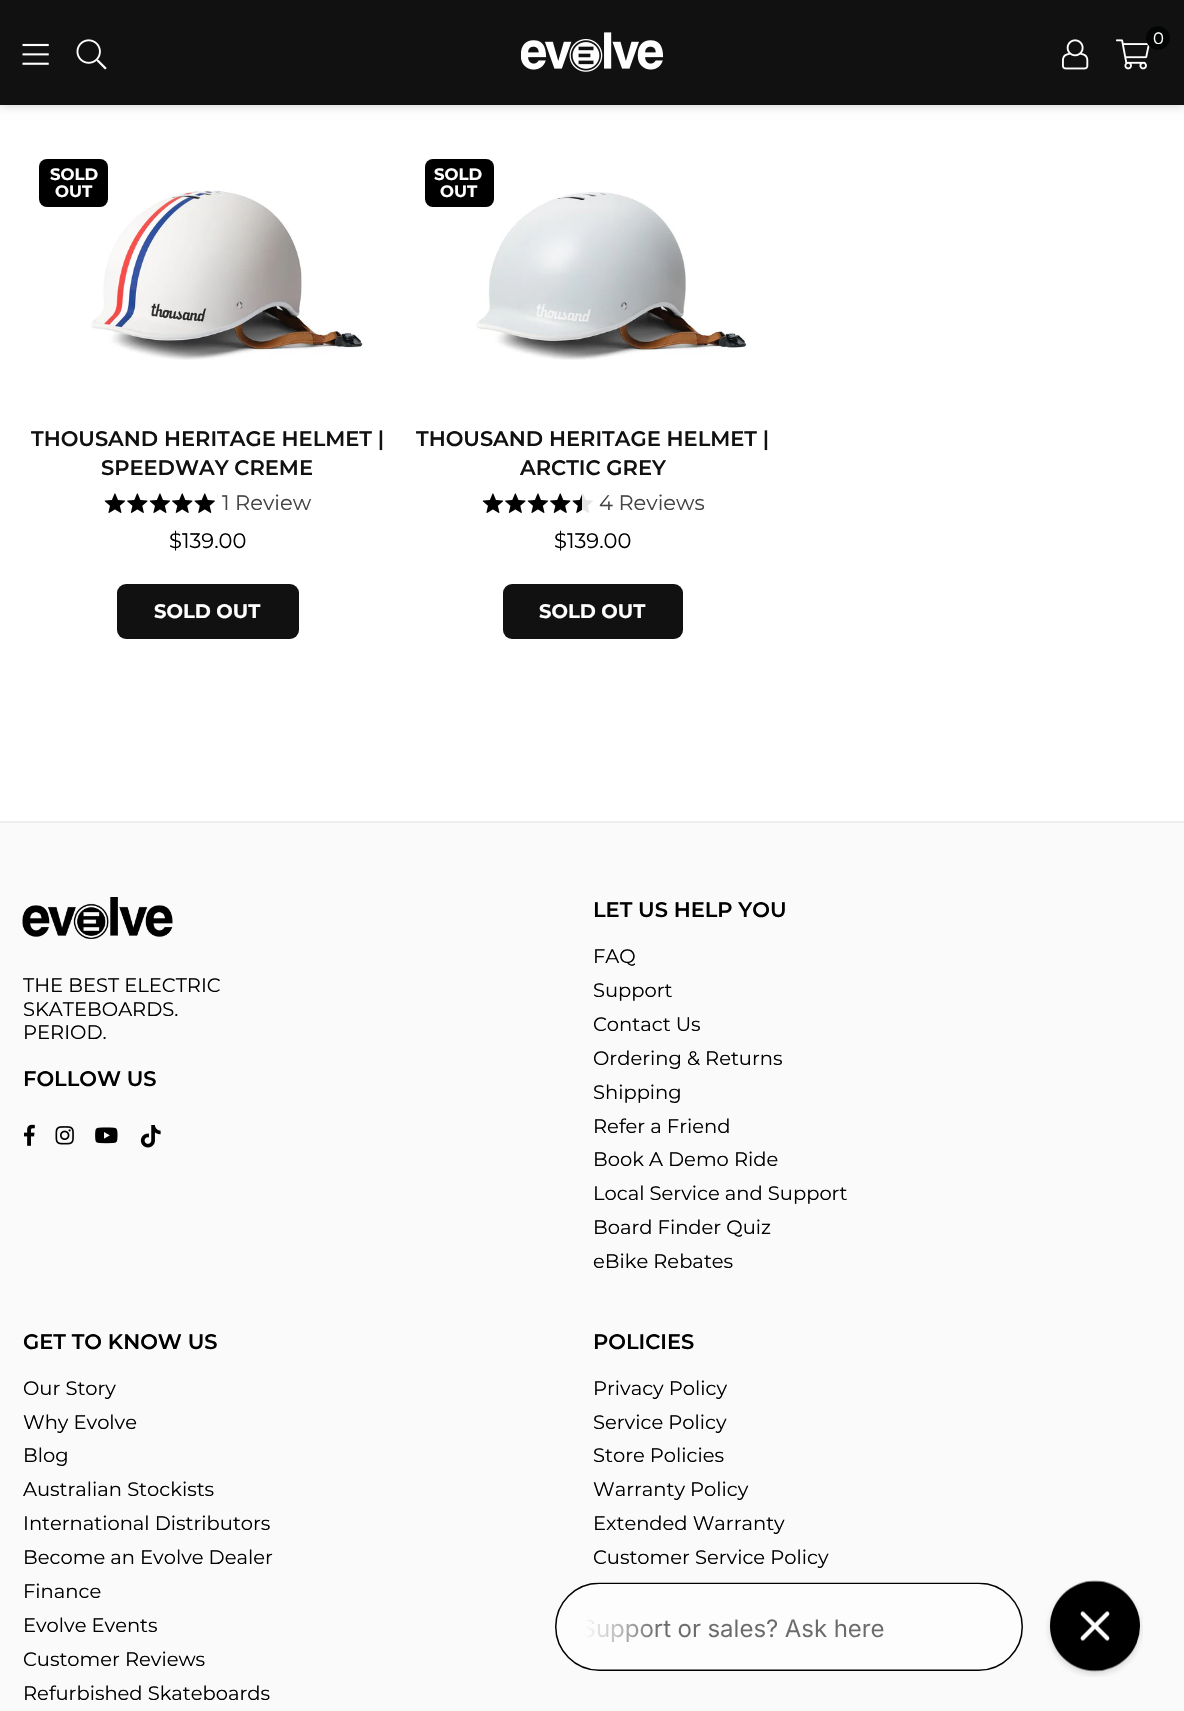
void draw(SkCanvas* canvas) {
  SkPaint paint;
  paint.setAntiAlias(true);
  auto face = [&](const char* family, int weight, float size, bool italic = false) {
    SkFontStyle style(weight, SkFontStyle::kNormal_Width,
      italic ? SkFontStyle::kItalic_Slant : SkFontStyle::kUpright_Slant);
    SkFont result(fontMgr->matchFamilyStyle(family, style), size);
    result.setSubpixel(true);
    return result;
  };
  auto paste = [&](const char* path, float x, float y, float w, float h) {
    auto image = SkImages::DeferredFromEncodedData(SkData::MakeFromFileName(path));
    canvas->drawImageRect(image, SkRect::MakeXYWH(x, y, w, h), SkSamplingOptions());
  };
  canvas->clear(0xffffffff);
  paint.setColor(0x33000000);
  paint.setMaskFilter(SkMaskFilter::MakeBlur(kNormal_SkBlurStyle, 5));
  canvas->drawRect(SkRect::MakeXYWH(0, 0, 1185, 105), paint);
  paint.setMaskFilter(nullptr);
  paint.setColor(0xff111111);
  canvas->drawRect(SkRect::MakeXYWH(0, 0, 1184, 105), paint);
  paste("img/1.png", 22, 43, 27, 22);
  paste("img/2.png", 76, 39, 31, 31);
  paste("img/3.png", 521, 32, 143, 40);
  paste("img/4.png", 1062, 39, 27, 31);
  paste("img/5.png", 1116, 39, 34, 31);
  paint.setColor(0xff030505);
  canvas->drawCircle(1158, 38, 12, paint);
  paste("img/6.png", 91, 190, 273, 170);
  paint.setColor(0xff000000);
  canvas->drawRoundRect(SkRect::MakeXYWH(39, 159, 69, 48), 8, 8, paint);
  paste("img/8.png", 105, 493, 110, 20);
  paste("img/7.png", 104, 493, 111, 20);
  paint.setColor(0xff111111);
  canvas->drawRoundRect(SkRect::MakeXYWH(117, 584, 182, 55), 9, 9, paint);
  paste("img/9.png", 476, 192, 272, 168);
  paint.setColor(0xff000000);
  canvas->drawRoundRect(SkRect::MakeXYWH(425, 159, 69, 48), 8, 8, paint);
  paste("img/8.png", 483, 493, 110, 20);
  paste("img/10.png", 482, 493, 100, 20);
  paint.setColor(0xff111111);
  canvas->drawRoundRect(SkRect::MakeXYWH(503, 584, 180, 55), 9, 9, paint);
  paint.setColor(0xfffafafa);
  canvas->drawRect(SkRect::MakeXYWH(0, 823, 1184, 888), paint);
  paint.setColor(0xffeeeeee);
  canvas->drawRect(SkRect::MakeXYWH(0, 821, 1184, 2), paint);
  paste("img/11.png", 22, 897, 151, 42);
  paste("img/12.png", 24, 1124, 11, 22);
  paste("img/13.png", 55, 1126, 19, 19);
  paste("img/14.png", 95, 1127, 23, 17);
  paste("img/15.png", 140, 1125, 21, 23);
  paste("img/16.png", 555, 1580, 588, 97);
  auto f0 = face("Montserrat", 100, 16.5f);
  paint.setColor(0xffffffff);
  canvas->drawString("0", 1153, 44, f0, paint);
  auto f1 = face("Montserrat", 700, 16.5f);
  canvas->drawString("SOLD", 50, 180, f1, paint);
  canvas->drawString("OUT", 55, 197, f1, paint);
  auto f2 = face("Montserrat", 600, 21);
  paint.setColor(0xff111111);
  canvas->drawString("THOUSAND HERITAGE HELMET |", 31, 446, f2, paint);
  canvas->drawString("SPEEDWAY CREME", 101, 475, f2, paint);
  auto f3 = face("Montserrat", 100, 21);
  paint.setColor(0xff444444);
  canvas->drawString("1 Review", 222, 510, f3, paint);
  paint.setColor(0xff000000);
  canvas->drawString("$139.00", 169, 548, f3, paint);
  auto f4 = face("Montserrat", 700, 19.5f);
  paint.setColor(0xffffffff);
  canvas->drawString("SOLD OUT", 154, 618, f4, paint);
  canvas->drawString("SOLD", 434, 180, f1, paint);
  canvas->drawString("OUT", 440, 197, f1, paint);
  paint.setColor(0xff111111);
  canvas->drawString("THOUSAND HERITAGE HELMET |", 416, 446, f2, paint);
  canvas->drawString("ARCTIC GREY", 520, 475, f2, paint);
  paint.setColor(0xff444444);
  canvas->drawString("4 Reviews", 599, 510, f3, paint);
  paint.setColor(0xff000000);
  canvas->drawString("$139.00", 554, 548, f3, paint);
  paint.setColor(0xffffffff);
  canvas->drawString("SOLD OUT", 539, 618, f4, paint);
  auto f5 = face("Montserrat", 100, 19.5f);
  paint.setColor(0xff000000);
  {
    const struct { const char* s; float x, y; } items[] = {
      {"THE BEST ELECTRIC", 23, 992},
      {"SKATEBOARDS.", 23, 1016},
      {"PERIOD.", 23, 1039},
    };
    for (auto [s, x, y] : items) {
      canvas->drawString(s, x, y, f5, paint);
    }
  }
  canvas->drawString("FOLLOW US", 23, 1086, f2, paint);
  canvas->drawString("LET US HELP YOU", 593, 917, f2, paint);
  {
    const struct { const char* s; float x, y; } items[] = {
      {"FAQ", 593, 963},
      {"Support", 593, 997},
      {"Contact Us", 593, 1031},
      {"Ordering & Returns", 593, 1065},
      {"Shipping", 593, 1099},
      {"Refer a Friend", 593, 1133},
      {"Book A Demo Ride", 593, 1166},
      {"Local Service and Support", 593, 1200},
      {"Board Finder Quiz", 593, 1234},
      {"eBike Rebates", 593, 1268},
    };
    for (auto [s, x, y] : items) {
      canvas->drawString(s, x, y, f5, paint);
    }
  }
  canvas->drawString("GET TO KNOW US", 23, 1349, f2, paint);
  {
    const struct { const char* s; float x, y; } items[] = {
      {"Our Story", 23, 1395},
      {"Why Evolve", 23, 1429},
      {"Blog", 23, 1462},
      {"Australian Stockists", 23, 1496},
      {"International Distributors", 23, 1530},
      {"Become an Evolve Dealer", 23, 1564},
      {"Finance", 23, 1598},
      {"Evolve Events", 23, 1632},
      {"Customer Reviews", 23, 1666},
      {"Refurbished Skateboards", 23, 1700},
    };
    for (auto [s, x, y] : items) {
      canvas->drawString(s, x, y, f5, paint);
    }
  }
  canvas->drawString("POLICIES", 593, 1349, f2, paint);
  {
    const struct { const char* s; float x, y; } items[] = {
      {"Privacy Policy", 593, 1395},
      {"Service Policy", 593, 1429},
      {"Store Policies", 593, 1462},
      {"Warranty Policy", 593, 1496},
      {"Extended Warranty", 593, 1530},
      {"Customer Service Policy", 593, 1564},
    };
    for (auto [s, x, y] : items) {
      canvas->drawString(s, x, y, f5, paint);
    }
  }
}
